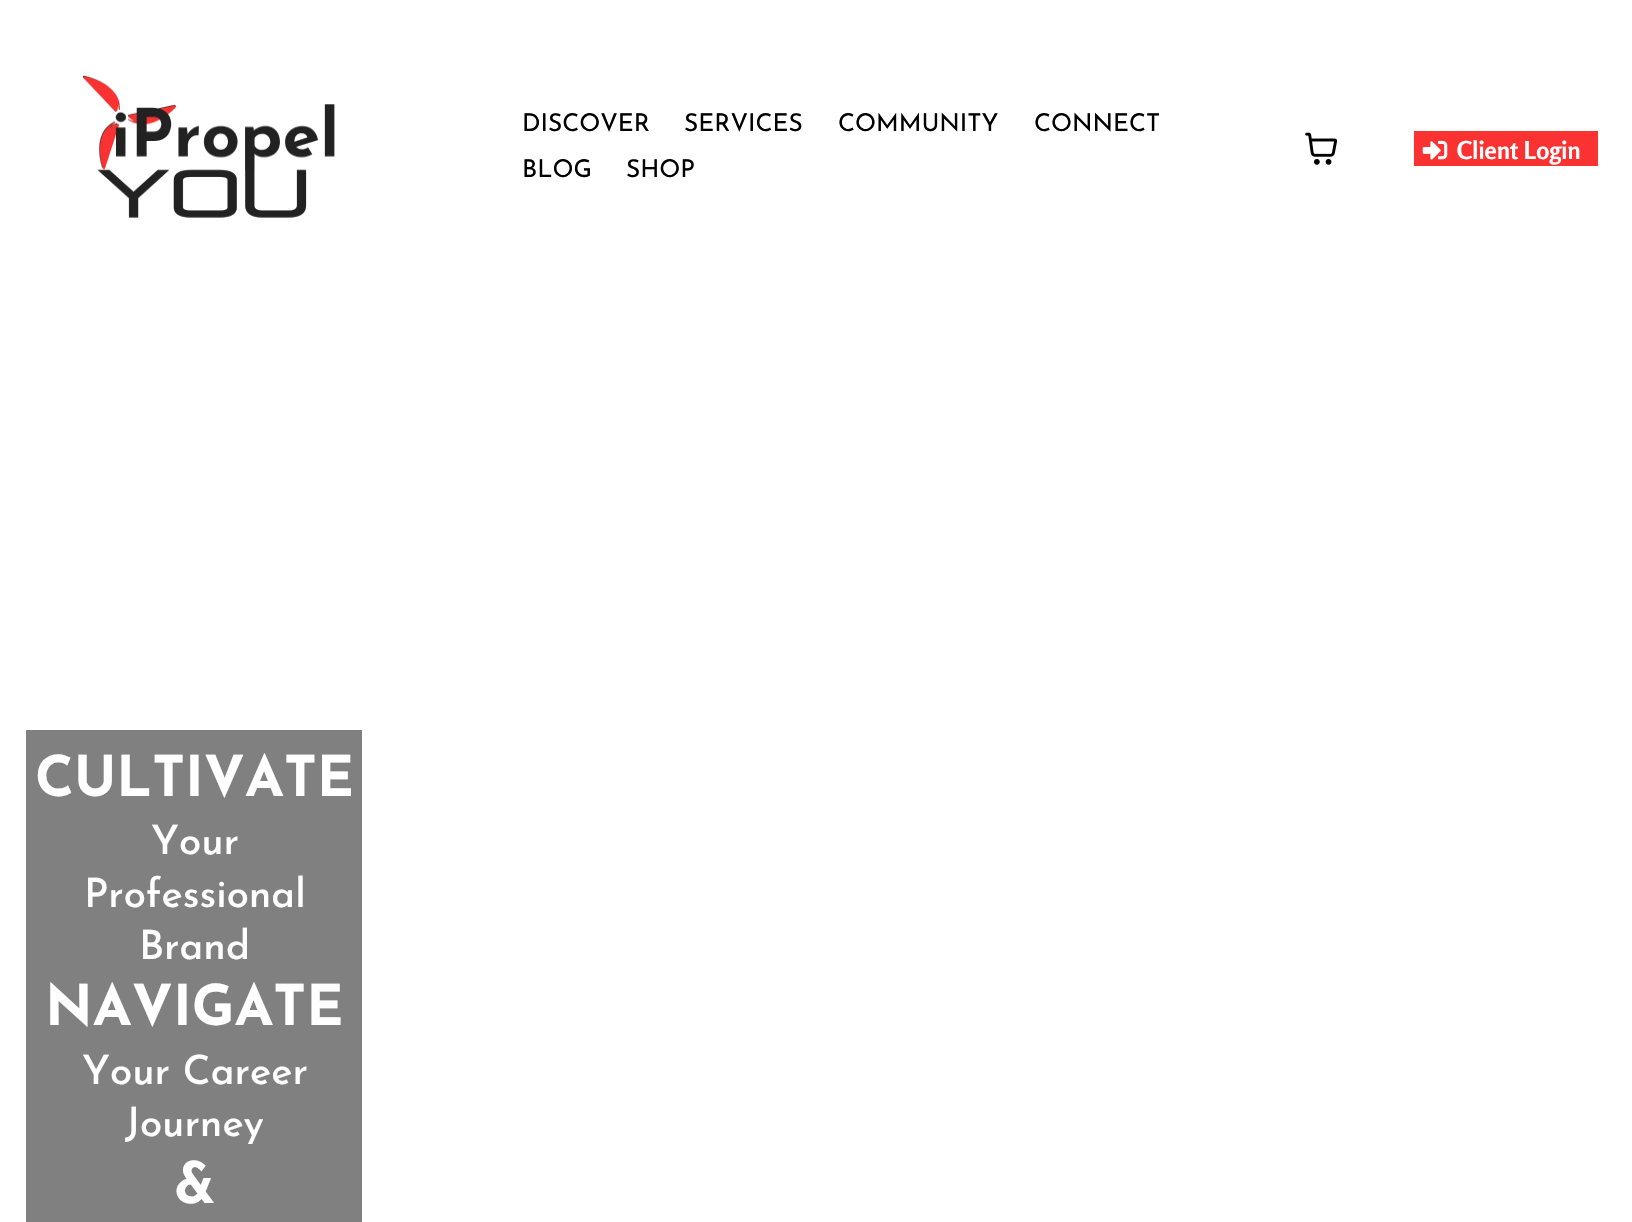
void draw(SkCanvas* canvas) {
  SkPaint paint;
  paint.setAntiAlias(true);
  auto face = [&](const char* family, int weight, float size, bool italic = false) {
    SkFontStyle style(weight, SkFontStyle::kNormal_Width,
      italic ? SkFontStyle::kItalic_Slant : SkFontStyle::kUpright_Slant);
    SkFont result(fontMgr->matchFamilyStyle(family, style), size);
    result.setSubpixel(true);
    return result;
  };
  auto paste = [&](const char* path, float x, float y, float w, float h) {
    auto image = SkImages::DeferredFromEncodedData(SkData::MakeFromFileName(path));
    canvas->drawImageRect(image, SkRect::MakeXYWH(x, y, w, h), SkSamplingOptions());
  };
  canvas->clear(0xffffffff);
  paste("img/1.png", 82, 75, 253, 143);
  paste("img/2.png", 1305, 132, 32, 33);
  paint.setColor(0xfffa3232);
  canvas->drawRect(SkRect::MakeXYWH(1414, 131, 184, 35), paint);
  paste("img/3.png", 1422, 140, 26, 20);
  paint.setColor(0xff808080);
  canvas->drawRect(SkRect::MakeXYWH(26, 730, 336, 492), paint);
  auto f0 = face("Josefin Sans", 100, 24.5f);
  paint.setColor(0xff000000);
  {
    const struct { const char* s; float x, y; } items[] = {
      {"DISCOVER", 522, 131},
      {"SERVICES", 684, 131},
      {"COMMUNITY", 838, 131},
      {"CONNECT", 1034, 131},
      {"BLOG", 522, 177},
      {"SHOP", 626, 177},
    };
    for (auto [s, x, y] : items) {
      canvas->drawString(s, x, y, f0, paint);
    }
  }
  auto f1 = face("Rosario", 700, 24.5f);
  paint.setColor(0xffffffff);
  canvas->drawString("Client Login", 1457, 159, f1, paint);
  auto f2 = face("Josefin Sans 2", 100, 56);
  canvas->drawString("CULTIVATE", 35, 796, f2, paint);
  auto f3 = face("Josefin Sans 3", 100, 40.25f);
  {
    const struct { const char* s; float x, y; } items[] = {
      {"Your", 151, 854},
      {"Professional", 84, 907},
      {"Brand", 139, 959},
    };
    for (auto [s, x, y] : items) {
      canvas->drawString(s, x, y, f3, paint);
    }
  }
  canvas->drawString("NAVIGATE", 45, 1025, f2, paint);
  canvas->drawString("Your Career", 82, 1084, f3, paint);
  canvas->drawString("Journey", 125, 1136, f3, paint);
  canvas->drawString("&", 174, 1203, f2, paint);
}
